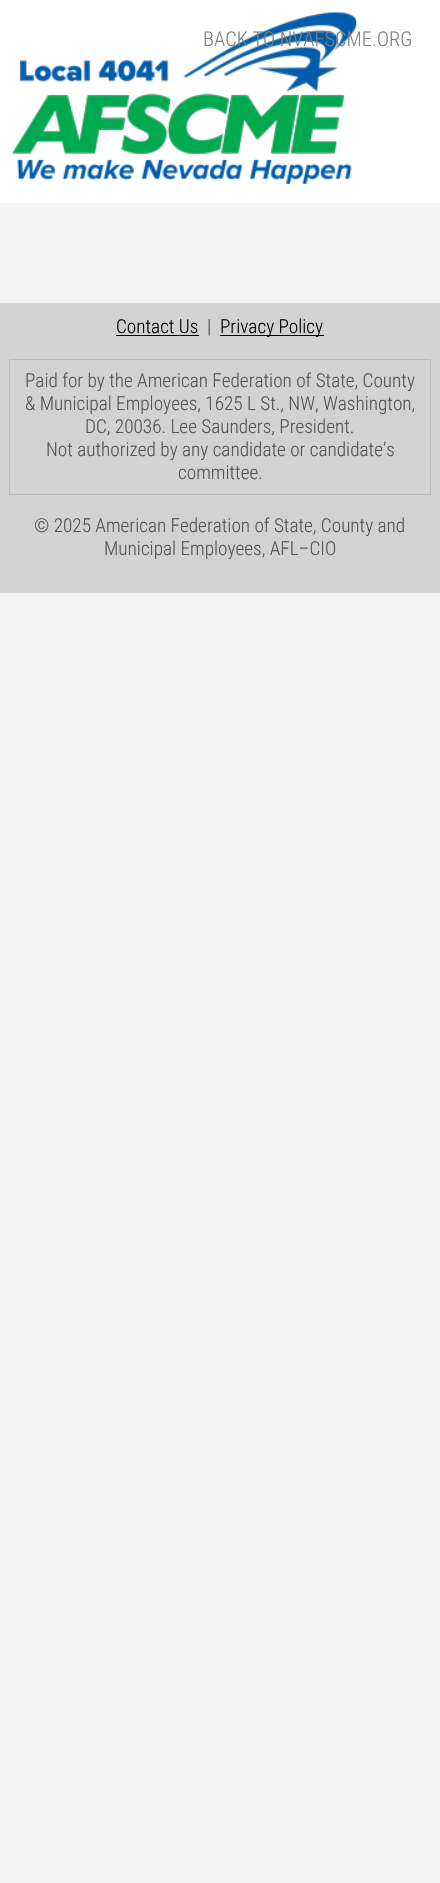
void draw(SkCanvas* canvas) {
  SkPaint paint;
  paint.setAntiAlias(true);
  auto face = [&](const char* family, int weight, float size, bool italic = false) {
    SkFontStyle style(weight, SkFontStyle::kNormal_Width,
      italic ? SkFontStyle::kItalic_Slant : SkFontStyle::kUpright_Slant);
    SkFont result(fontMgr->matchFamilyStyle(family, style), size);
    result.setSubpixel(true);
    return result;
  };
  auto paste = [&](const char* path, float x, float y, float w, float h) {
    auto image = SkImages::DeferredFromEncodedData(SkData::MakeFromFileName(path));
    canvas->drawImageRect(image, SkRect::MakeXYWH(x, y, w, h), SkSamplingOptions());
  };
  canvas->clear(0xfff4f4f4);
  paint.setColor(0xffffffff);
  canvas->drawRect(SkRect::MakeXYWH(0, 0, 440, 203), paint);
  paste("img/1.png", 12, 12, 345, 173);
  {
    const struct { float x, y, w, h; SkColor color; } items[] = {
      {0, 303, 440, 290, 0xffd2d2d2},
      {116, 335, 83, 1, 0xff000000},
      {220, 335, 104, 1, 0xff000000},
    };
    for (auto [x, y, w, h, color] : items) {
      paint.setColor(color);
      canvas->drawRect(SkRect::MakeXYWH(x, y, w, h), paint);
    }
  }
  paint.setStroke(true);
  paint.setStrokeWidth(1);
  paint.setColor(0xffbbbbbb);
  canvas->drawRect(SkRect::MakeXYWH(9.5f, 359.5f, 421, 135), paint);
  auto f0 = face("Roboto Condensed", 300, 20.4f);
  paint.setStroke(false);
  paint.setColor(0xff808080);
  canvas->drawString("BACK TO NVAFSCME.ORG", 203, 46, f0, paint);
  auto f1 = face("Roboto Condensed", 300, 19.2f);
  paint.setColor(0xff000000);
  canvas->drawString("Contact Us", 116, 333, f1, paint);
  paint.setColor(0xff535353);
  canvas->drawString("|", 207, 333, f1, paint);
  paint.setColor(0xff000000);
  canvas->drawString("Privacy Policy", 220, 333, f1, paint);
  paint.setColor(0xff535353);
  {
    const struct { const char* s; float x, y; } items[] = {
      {"Paid for by the American Federation of State, County", 25, 387},
      {"& Municipal Employees, 1625 L St., NW, Washington,", 25, 410},
      {"DC, 20036. Lee Saunders, President.", 85, 433},
      {"Not authorized by any candidate or candidate’s", 46, 456},
      {"committee.", 178, 479},
      {"© 2025 American Federation of State, County and", 34, 532},
      {"Municipal Employees, AFL–CIO", 104, 555},
    };
    for (auto [s, x, y] : items) {
      canvas->drawString(s, x, y, f1, paint);
    }
  }
}
